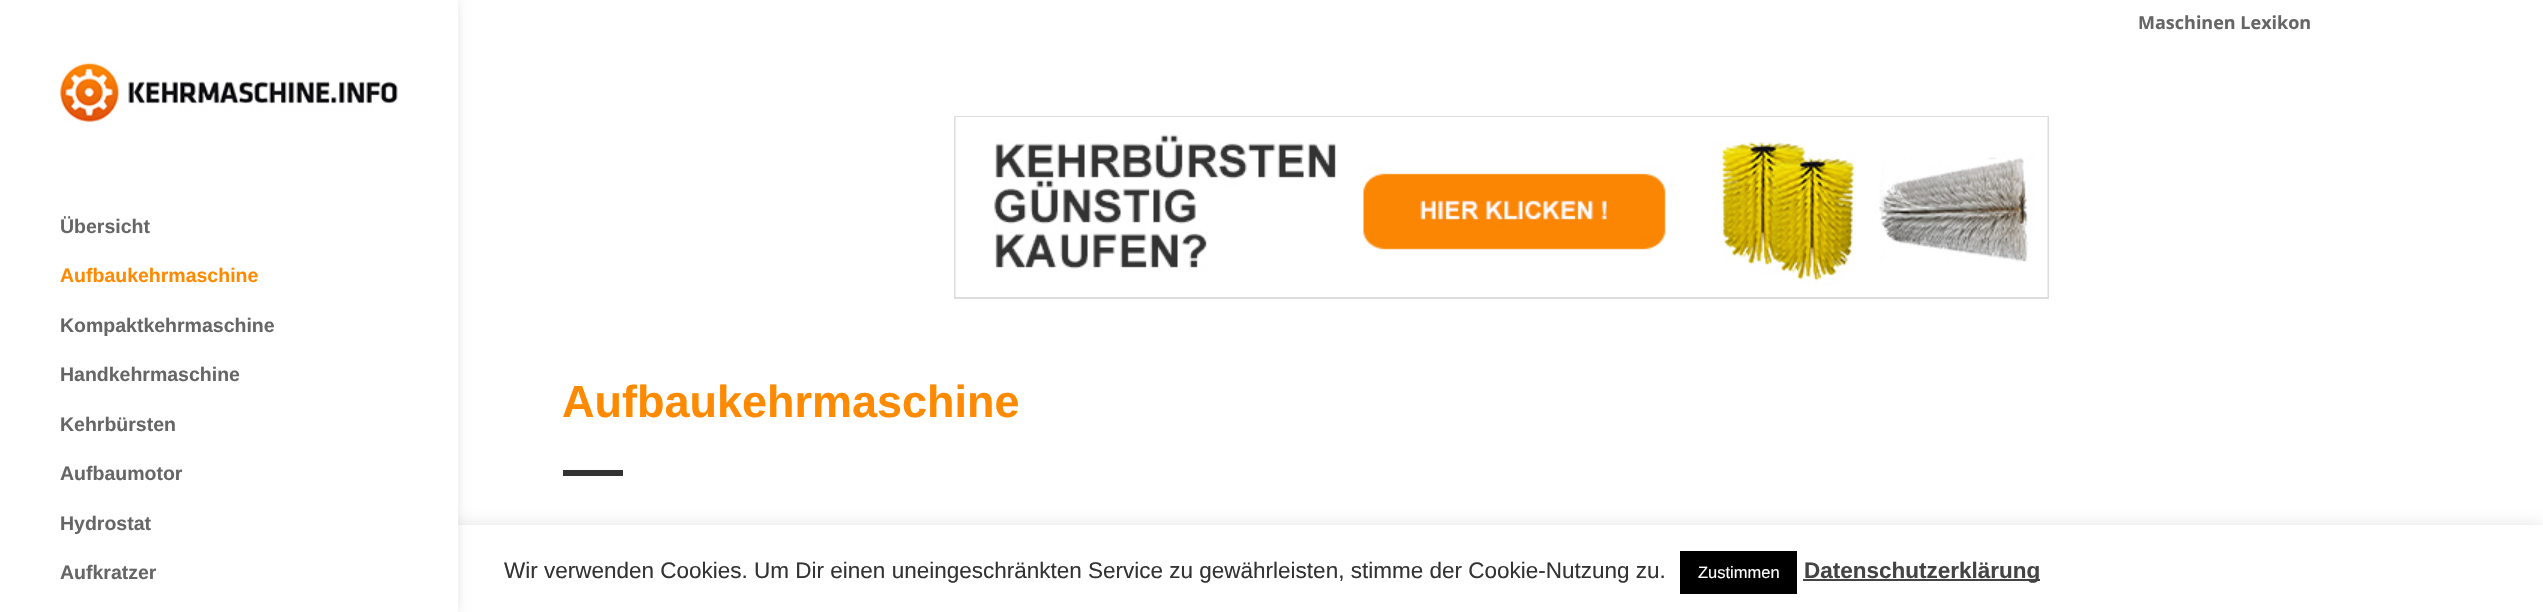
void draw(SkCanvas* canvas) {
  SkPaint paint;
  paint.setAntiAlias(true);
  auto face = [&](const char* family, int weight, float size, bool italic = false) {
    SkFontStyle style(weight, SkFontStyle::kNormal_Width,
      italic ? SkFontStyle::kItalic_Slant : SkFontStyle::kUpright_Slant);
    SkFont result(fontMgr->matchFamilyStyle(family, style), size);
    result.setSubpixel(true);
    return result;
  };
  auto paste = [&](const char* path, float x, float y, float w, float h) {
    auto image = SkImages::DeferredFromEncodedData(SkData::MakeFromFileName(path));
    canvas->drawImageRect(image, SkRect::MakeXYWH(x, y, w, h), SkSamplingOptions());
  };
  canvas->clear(0xffffffff);
  paint.setColor(0x4dacabab);
  paint.setMaskFilter(SkMaskFilter::MakeBlur(kNormal_SkBlurStyle, 7.5f));
  canvas->drawRect(SkRect::MakeXYWH(0, 524, 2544, 87), paint);
  paint.setMaskFilter(nullptr);
  paint.setColor(0xffffffff);
  canvas->drawRect(SkRect::MakeXYWH(458, 525, 2085, 87), paint);
  paint.setColor(0x1a000000);
  paint.setMaskFilter(SkMaskFilter::MakeBlur(kNormal_SkBlurStyle, 5));
  canvas->drawRect(SkRect::MakeXYWH(0, 0, 458, 612), paint);
  paint.setMaskFilter(nullptr);
  paint.setColor(0xffffffff);
  canvas->drawRect(SkRect::MakeXYWH(0, 0, 458, 612), paint);
  paste("img/1.png", 60, 62, 338, 61);
  paint.setStroke(true);
  paint.setStrokeWidth(2);
  paint.setColor(0xffdddddd);
  canvas->drawRect(SkRect::MakeXYWH(955, 117, 1093, 181), paint);
  paste("img/2.png", 955, 117, 1093, 180);
  paint.setStroke(false);
  {
    const struct { float x, y, w, h; SkColor color; } items[] = {
      {563, 470, 60, 6, 0xff333333},
      {1680, 551, 117, 43, 0xff000000},
      {1803, 579, 237, 2, 0xff444444},
    };
    for (auto [x, y, w, h, color] : items) {
      paint.setColor(color);
      canvas->drawRect(SkRect::MakeXYWH(x, y, w, h), paint);
    }
  }
  auto f0 = face("Open Sans", 700, 18);
  paint.setColor(0xff666666);
  canvas->drawString("Maschinen Lexikon", 2138, 29, f0, paint);
  auto f1 = face("Liberation Sans", 700, 19.5f);
  canvas->drawString("Übersicht", 60, 233, f1, paint);
  paint.setColor(0xfffe8a01);
  canvas->drawString("Aufbaukehrmaschine", 60, 282, f1, paint);
  paint.setColor(0xff666666);
  {
    const struct { const char* s; float x, y; } items[] = {
      {"Kompaktkehrmaschine", 60, 332},
      {"Handkehrmaschine", 60, 381},
      {"Kehrbürsten", 60, 431},
      {"Aufbaumotor", 60, 480},
      {"Hydrostat", 60, 530},
      {"Aufkratzer", 60, 579},
    };
    for (auto [s, x, y] : items) {
      canvas->drawString(s, x, y, f1, paint);
    }
  }
  auto f2 = face("Liberation Sans", 700, 45);
  paint.setColor(0xfffe8a01);
  canvas->drawString("Aufbaukehrmaschine", 562, 417, f2, paint);
  auto f3 = face("Liberation Sans", 400, 22.5f);
  paint.setColor(0xff333333);
  canvas->drawString("Wir verwenden Cookies. Um Dir einen uneingeschränkten Service zu gewährleisten, stimme der Cookie-Nutzung zu.", 504, 578, f3, paint);
  auto f4 = face("Liberation Sans", 400, 16.5f);
  paint.setColor(0xffffffff);
  canvas->drawString("Zustimmen", 1698, 578, f4, paint);
  auto f5 = face("Liberation Sans", 700, 22.5f);
  paint.setColor(0xff444444);
  canvas->drawString("Datenschutzerklärung", 1804, 578, f5, paint);
}
